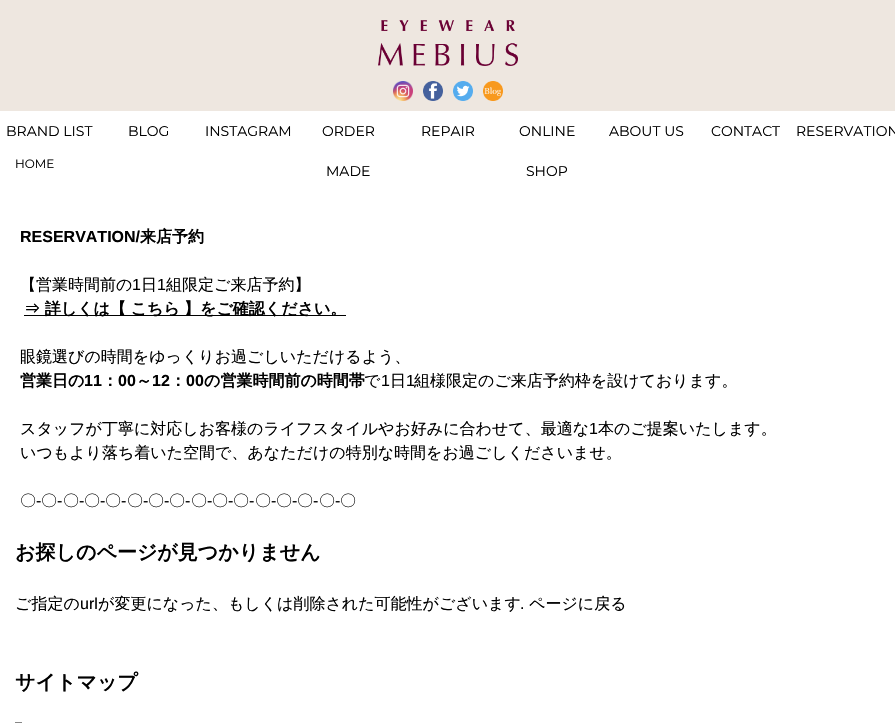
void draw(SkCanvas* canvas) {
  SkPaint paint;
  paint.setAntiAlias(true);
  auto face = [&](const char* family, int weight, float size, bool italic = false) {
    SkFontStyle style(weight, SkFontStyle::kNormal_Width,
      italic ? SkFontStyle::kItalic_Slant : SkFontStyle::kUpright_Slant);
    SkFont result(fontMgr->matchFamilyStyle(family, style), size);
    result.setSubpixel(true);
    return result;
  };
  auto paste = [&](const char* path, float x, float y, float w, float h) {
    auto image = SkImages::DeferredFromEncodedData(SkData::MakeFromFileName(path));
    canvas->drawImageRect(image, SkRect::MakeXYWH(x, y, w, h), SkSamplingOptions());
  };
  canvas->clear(0xffffffff);
  paint.setColor(0xffeee7e0);
  canvas->drawRect(SkRect::MakeXYWH(0, 0, 895, 111), paint);
  paste("img/1.png", 378, 20, 140, 46);
  paste("img/2.png", 393, 81, 20, 20);
  paste("img/3.png", 423, 81, 20, 20);
  paste("img/4.png", 453, 81, 20, 20);
  paste("img/5.png", 483, 81, 20, 20);
  paint.setColor(0xff000000);
  canvas->drawRect(SkRect::MakeXYWH(24, 315, 322, 1), paint);
  paint.setColor(0xff878787);
  canvas->drawRect(SkRect::MakeXYWH(15, 722, 7, 1), paint);
  auto f0 = face("Montserrat", 100, 14);
  paint.setColor(0xff000000);
  {
    const struct { const char* s; float x, y; } items[] = {
      {"BRAND LIST", 6, 136},
      {"BLOG", 128, 136},
      {"INSTAGRAM", 205, 136},
      {"ORDER", 322, 136},
      {"MADE", 326, 176},
      {"REPAIR", 421, 136},
      {"ONLINE", 519, 136},
      {"SHOP", 526, 176},
      {"ABOUT US", 609, 136},
      {"CONTACT", 711, 136},
      {"RESERVATION", 796, 136},
    };
    for (auto [s, x, y] : items) {
      canvas->drawString(s, x, y, f0, paint);
    }
  }
  auto f1 = face("Montserrat", 100, 12);
  canvas->drawString("HOME", 15, 168, f1, paint);
  auto f2 = face("Liberation Sans", 700, 16);
  canvas->drawString("RESERVATION/", 20, 242, f2, paint);
  auto f3 = face("WenQuanYi Zen Hei", 700, 16);
  canvas->drawString("来店予約", 140, 242, f3, paint);
  auto f4 = face("WenQuanYi Zen Hei", 500, 16);
  canvas->drawString("【営業時間前の", 20, 290, f4, paint);
  auto f5 = face("Liberation Sans", 400, 16);
  canvas->drawString("1", 132, 290, f5, paint);
  canvas->drawString("日", 141, 290, f4, paint);
  canvas->drawString("1", 157, 290, f5, paint);
  canvas->drawString("組限定ご来店予約】", 166, 290, f4, paint);
  canvas->drawString("⇒ 詳しくは【 こちら", 24, 314, f3, paint);
  canvas->drawString("】をご確認ください。", 184, 314, f3, paint);
  canvas->drawString("眼鏡選びの時間をゆっくりお過ごしいただけるよう、", 20, 362, f4, paint);
  canvas->drawString("営業日の", 20, 386, f3, paint);
  canvas->drawString("11", 84, 386, f2, paint);
  canvas->drawString("：", 102, 386, f3, paint);
  canvas->drawString("00", 118, 386, f2, paint);
  canvas->drawString("～", 136, 386, f3, paint);
  canvas->drawString("12", 152, 386, f2, paint);
  canvas->drawString("：", 170, 386, f3, paint);
  canvas->drawString("00", 186, 386, f2, paint);
  canvas->drawString("の営業時間前の時間帯", 204, 386, f3, paint);
  canvas->drawString("で", 364, 386, f4, paint);
  canvas->drawString("1", 381, 386, f5, paint);
  canvas->drawString("日", 390, 386, f4, paint);
  canvas->drawString("1", 406, 386, f5, paint);
  canvas->drawString("組様限定のご来店予約枠を設けております。", 414, 386, f4, paint);
  canvas->drawString("スタッフが丁寧に対応しお客様のライフスタイルやお好みに合わせて、最適な", 20, 434, f4, paint);
  canvas->drawString("1", 589, 434, f5, paint);
  {
    const struct { const char* s; float x, y; } items[] = {
      {"本のご提案いたします。", 598, 434},
      {"いつもより落ち着いた空間で、あなただけの特別な時間をお過ごしくださいませ。", 20, 458},
      {"〇", 20, 506},
    };
    for (auto [s, x, y] : items) {
      canvas->drawString(s, x, y, f4, paint);
    }
  }
  canvas->drawString("-", 36, 506, f5, paint);
  canvas->drawString("〇", 41, 506, f4, paint);
  canvas->drawString("-", 57, 506, f5, paint);
  canvas->drawString("〇", 63, 506, f4, paint);
  canvas->drawString("-", 79, 506, f5, paint);
  canvas->drawString("〇", 84, 506, f4, paint);
  canvas->drawString("-", 100, 506, f5, paint);
  canvas->drawString("〇", 105, 506, f4, paint);
  canvas->drawString("-", 121, 506, f5, paint);
  canvas->drawString("〇", 127, 506, f4, paint);
  canvas->drawString("-", 143, 506, f5, paint);
  canvas->drawString("〇", 148, 506, f4, paint);
  canvas->drawString("-", 164, 506, f5, paint);
  canvas->drawString("〇", 169, 506, f4, paint);
  canvas->drawString("-", 185, 506, f5, paint);
  canvas->drawString("〇", 191, 506, f4, paint);
  canvas->drawString("-", 207, 506, f5, paint);
  canvas->drawString("〇", 212, 506, f4, paint);
  canvas->drawString("-", 228, 506, f5, paint);
  canvas->drawString("〇", 233, 506, f4, paint);
  canvas->drawString("-", 249, 506, f5, paint);
  canvas->drawString("〇", 255, 506, f4, paint);
  canvas->drawString("-", 271, 506, f5, paint);
  canvas->drawString("〇", 276, 506, f4, paint);
  canvas->drawString("-", 292, 506, f5, paint);
  canvas->drawString("〇", 297, 506, f4, paint);
  canvas->drawString("-", 313, 506, f5, paint);
  canvas->drawString("〇", 319, 506, f4, paint);
  canvas->drawString("-", 335, 506, f5, paint);
  canvas->drawString("〇", 340, 506, f4, paint);
  auto f6 = face("WenQuanYi Zen Hei", 700, 20);
  canvas->drawString("お探しのページが見つかりません", 15, 559, f6, paint);
  canvas->drawString("ご指定の", 15, 609, f4, paint);
  canvas->drawString("url", 80, 609, f5, paint);
  canvas->drawString("が変更になった、もしくは削除された可能性がございます", 98, 609, f4, paint);
  canvas->drawString(".", 520, 609, f5, paint);
  canvas->drawString("ページに戻る", 529, 609, f4, paint);
  canvas->drawString("サイトマップ", 15, 689, f6, paint);
}
